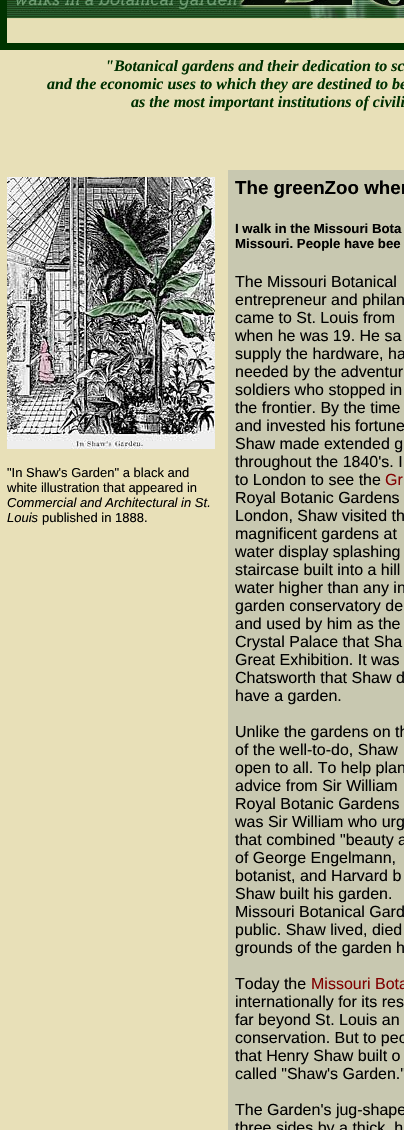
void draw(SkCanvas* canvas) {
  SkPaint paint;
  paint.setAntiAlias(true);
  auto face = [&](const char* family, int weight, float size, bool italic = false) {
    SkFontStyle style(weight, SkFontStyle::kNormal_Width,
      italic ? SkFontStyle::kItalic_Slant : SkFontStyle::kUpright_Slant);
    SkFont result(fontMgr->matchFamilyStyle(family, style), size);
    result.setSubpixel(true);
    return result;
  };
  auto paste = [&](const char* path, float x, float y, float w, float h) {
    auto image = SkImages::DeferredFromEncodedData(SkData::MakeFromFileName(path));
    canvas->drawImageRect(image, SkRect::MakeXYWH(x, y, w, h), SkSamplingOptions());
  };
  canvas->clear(0xff003300);
  paste("img/1.png", 7, 0, 397, 43);
  paint.setColor(0xffe8e0b8);
  canvas->drawRect(SkRect::MakeXYWH(0, 50, 404, 120), paint);
  canvas->drawRect(SkRect::MakeXYWH(0, 170, 228, 960), paint);
  paste("img/2.png", 7, 177, 208, 272);
  paint.setColor(0xffc8c8b0);
  canvas->drawRect(SkRect::MakeXYWH(228, 170, 176, 960), paint);
  auto f0 = face("Liberation Serif", 700, 16, true);
  paint.setColor(0xff003000);
  {
    const struct { const char* s; float x, y; } items[] = {
      {"\"Botanical gardens and their dedication to sc", 105, 71},
      {"and the economic uses to which they are destined to be", 47, 89},
      {"as the most important institutions of civili", 131, 107},
    };
    for (auto [s, x, y] : items) {
      canvas->drawString(s, x, y, f0, paint);
    }
  }
  auto f1 = face("Liberation Sans", 400, 13);
  paint.setColor(0xff000000);
  canvas->drawString("\"In Shaw's Garden\" a black and", 7, 477, f1, paint);
  canvas->drawString("white illustration that appeared in", 7, 492, f1, paint);
  auto f2 = face("Liberation Sans", 400, 13, true);
  canvas->drawString("Commercial and Architectural in St.", 7, 507, f2, paint);
  canvas->drawString("Louis", 7, 522, f2, paint);
  canvas->drawString("published in 1888.", 42, 522, f1, paint);
  auto f3 = face("Liberation Sans", 700, 18.75f);
  canvas->drawString("The greenZoo wher", 235, 194, f3, paint);
  auto f4 = face("Liberation Sans", 700, 13.25f);
  canvas->drawString("I walk in the Missouri Bota", 235, 233, f4, paint);
  canvas->drawString("Missouri. People have bee", 235, 248, f4, paint);
  auto f5 = face("Liberation Sans", 400, 16);
  {
    const struct { const char* s; float x, y; } items[] = {
      {"The Missouri Botanical", 235, 287},
      {"entrepreneur and philan", 235, 305},
      {"came to St. Louis from", 235, 323},
      {"when he was 19. He sa", 235, 341},
      {"supply the hardware, ha", 235, 359},
      {"needed by the adventur", 235, 377},
      {"soldiers who stopped in", 235, 395},
      {"the frontier. By the time", 235, 413},
      {"and invested his fortune", 235, 431},
      {"Shaw made extended g", 235, 449},
      {"throughout the 1840's. I", 235, 467},
      {"to London to see the", 235, 485},
    };
    for (auto [s, x, y] : items) {
      canvas->drawString(s, x, y, f5, paint);
    }
  }
  paint.setColor(0xff800000);
  canvas->drawString("Gr", 385, 485, f5, paint);
  paint.setColor(0xff000000);
  {
    const struct { const char* s; float x, y; } items[] = {
      {"Royal Botanic Gardens", 235, 503},
      {"London, Shaw visited th", 235, 521},
      {"magnificent gardens at", 235, 539},
      {"water display splashing", 235, 557},
      {"staircase built into a hill", 235, 575},
      {"water higher than any in", 235, 593},
      {"garden conservatory de", 235, 611},
      {"and used by him as the", 235, 629},
      {"Crystal Palace that Sha", 235, 647},
      {"Great Exhibition. It was", 235, 665},
      {"Chatsworth that Shaw d", 235, 683},
      {"have a garden.", 235, 701},
      {"Unlike the gardens on th", 235, 737},
      {"of the well-to-do, Shaw", 235, 755},
      {"open to all. To help plan", 235, 773},
      {"advice from Sir William", 235, 791},
      {"Royal Botanic Gardens", 235, 809},
      {"was Sir William who urg", 235, 827},
      {"that combined \"beauty a", 235, 845},
      {"of George Engelmann,", 235, 863},
      {"botanist, and Harvard b", 235, 881},
      {"Shaw built his garden.", 235, 899},
      {"Missouri Botanical Gard", 235, 917},
      {"public. Shaw lived, died", 235, 935},
      {"grounds of the garden h", 235, 953},
      {"Today the", 235, 989},
    };
    for (auto [s, x, y] : items) {
      canvas->drawString(s, x, y, f5, paint);
    }
  }
  paint.setColor(0xff800000);
  canvas->drawString("Missouri Bota", 311, 989, f5, paint);
  paint.setColor(0xff000000);
  {
    const struct { const char* s; float x, y; } items[] = {
      {"internationally for its res", 235, 1007},
      {"far beyond St. Louis an", 235, 1025},
      {"conservation. But to peo", 235, 1043},
      {"that Henry Shaw built o", 235, 1061},
      {"called \"Shaw's Garden.\"", 235, 1079},
      {"The Garden's jug-shape", 235, 1115},
      {"three sides by a thick, h", 235, 1133},
    };
    for (auto [s, x, y] : items) {
      canvas->drawString(s, x, y, f5, paint);
    }
  }
}
